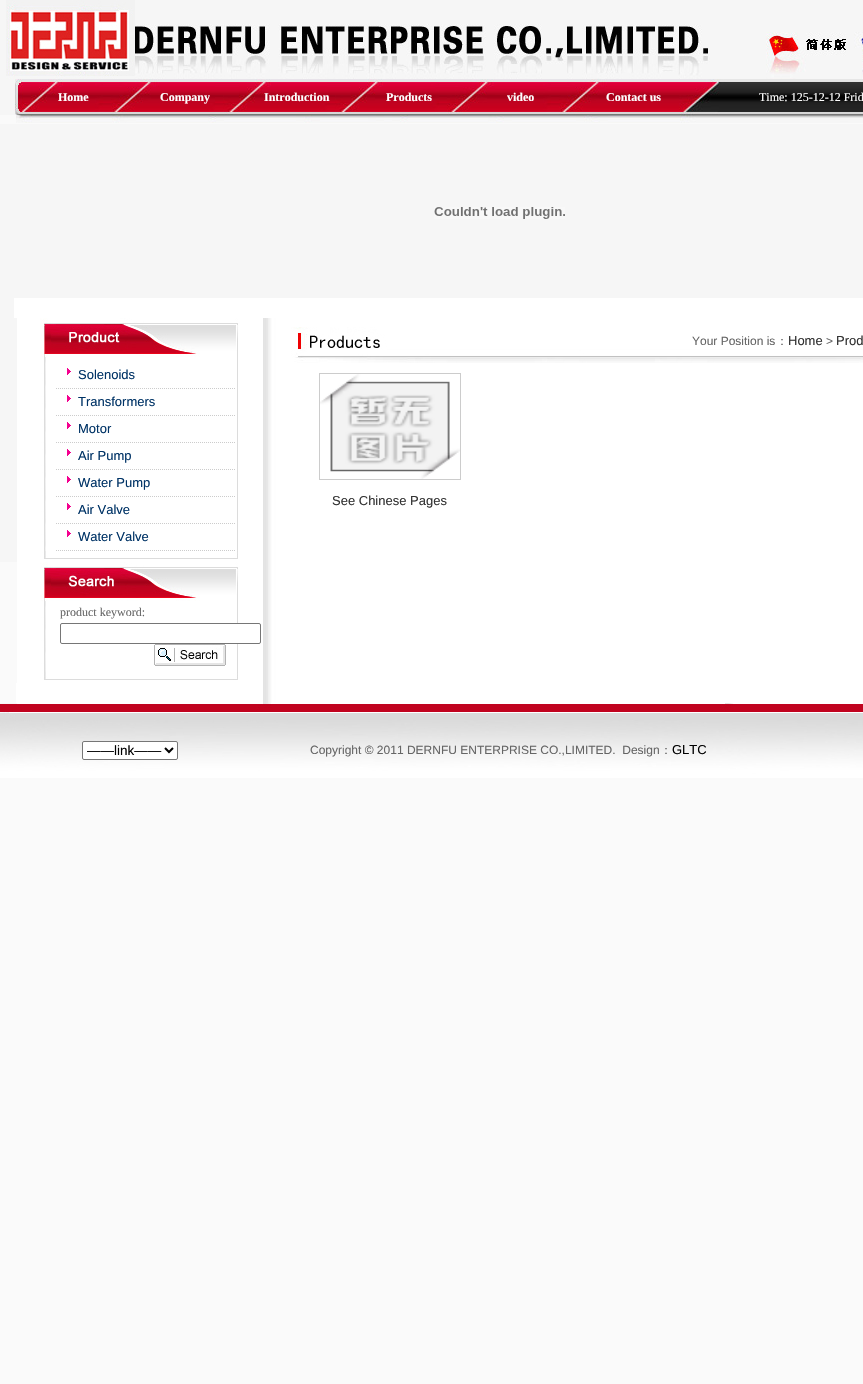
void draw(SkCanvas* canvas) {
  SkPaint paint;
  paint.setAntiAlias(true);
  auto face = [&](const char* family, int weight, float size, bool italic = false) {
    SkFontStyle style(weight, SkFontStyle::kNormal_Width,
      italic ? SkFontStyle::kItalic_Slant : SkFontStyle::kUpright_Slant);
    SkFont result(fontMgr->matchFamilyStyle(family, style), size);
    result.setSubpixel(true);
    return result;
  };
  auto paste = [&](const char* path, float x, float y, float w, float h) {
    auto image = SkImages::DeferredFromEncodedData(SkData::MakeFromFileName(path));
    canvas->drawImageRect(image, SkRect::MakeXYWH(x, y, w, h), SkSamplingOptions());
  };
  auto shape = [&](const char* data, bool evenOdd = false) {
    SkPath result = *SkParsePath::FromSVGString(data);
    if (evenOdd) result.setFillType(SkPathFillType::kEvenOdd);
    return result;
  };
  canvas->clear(0xfffafafa);
  paint.setColor(0xfff6f6f6);
  canvas->drawRect(SkRect::MakeXYWH(0, 0, 6, 79), paint);
  paste("img/1.png", 6, 0, 857, 79);
  canvas->drawRect(SkRect::MakeXYWH(0, 79, 15, 36), paint);
  paste("img/2.png", 15, 79, 848, 36);
  paste("img/3.png", 16, 115, 847, 8);
  canvas->drawRect(SkRect::MakeXYWH(0, 124, 863, 174), paint);
  paste("img/4.png", 434, 207, 131, 12);
  canvas->drawRect(SkRect::MakeXYWH(0, 298, 14, 20), paint);
  paint.setColor(0xffffffff);
  canvas->drawRect(SkRect::MakeXYWH(14, 298, 849, 20), paint);
  paste("img/5.png", 0, 318, 261, 39);
  paste("img/6.png", 0, 357, 261, 194);
  paste("img/7.png", 67, 368, 4, 7);
  paint.setStroke(true);
  paint.setStrokeWidth(1);
  paint.setColor(0xffcccccc);
  paint.setPathEffect(SkDashPathEffect::Make({{1, 1}}, 0));
  canvas->drawPath(shape("M56 388.5H236"), paint);
  paint.setPathEffect(nullptr);
  paste("img/7.png", 67, 395, 4, 7);
  paint.setPathEffect(SkDashPathEffect::Make({{1, 1}}, 0));
  canvas->drawPath(shape("M56 415.5H236"), paint);
  paint.setPathEffect(nullptr);
  paste("img/7.png", 67, 422, 4, 7);
  paint.setPathEffect(SkDashPathEffect::Make({{1, 1}}, 0));
  canvas->drawPath(shape("M56 442.5H236"), paint);
  paint.setPathEffect(nullptr);
  paste("img/7.png", 67, 449, 4, 7);
  paint.setPathEffect(SkDashPathEffect::Make({{1, 1}}, 0));
  canvas->drawPath(shape("M56 469.5H236"), paint);
  paint.setPathEffect(nullptr);
  paste("img/7.png", 67, 476, 4, 7);
  paint.setPathEffect(SkDashPathEffect::Make({{1, 1}}, 0));
  canvas->drawPath(shape("M56 496.5H236"), paint);
  paint.setPathEffect(nullptr);
  paste("img/7.png", 67, 503, 4, 7);
  paint.setPathEffect(SkDashPathEffect::Make({{1, 1}}, 0));
  canvas->drawPath(shape("M56 523.5H236"), paint);
  paint.setPathEffect(nullptr);
  paste("img/7.png", 67, 530, 4, 7);
  paint.setPathEffect(SkDashPathEffect::Make({{1, 1}}, 0));
  canvas->drawPath(shape("M56 550.5H236"), paint);
  paint.setPathEffect(nullptr);
  paste("img/8.png", 0, 551, 261, 11);
  paste("img/9.png", 17, 562, 244, 39);
  paste("img/10.png", 17, 601, 244, 71);
  paint.setStroke(false);
  paint.setColor(0xffffffff);
  canvas->drawRoundRect(SkRect::MakeXYWH(60.5f, 623.5f, 200, 20), 1.5f, 1.5f, paint);
  paint.setStroke(true);
  paint.setColor(0xff767676);
  canvas->drawRoundRect(SkRect::MakeXYWH(60.5f, 623.5f, 200, 20), 1.5f, 1.5f, paint);
  paste("img/11.png", 154, 644, 72, 22);
  paste("img/12.png", 17, 672, 244, 11);
  paint.setStroke(false);
  paint.setColor(0xffffffff);
  canvas->drawRect(SkRect::MakeXYWH(16, 683, 245, 20), paint);
  paste("img/13.png", 261, 318, 602, 385);
  paste("img/14.png", 291, 327, 572, 36);
  paint.setStroke(true);
  paint.setColor(0xffcccccc);
  canvas->drawRect(SkRect::MakeXYWH(319.5f, 373.5f, 141, 106), paint);
  paste("img/15.png", 320, 374, 140, 105);
  paste("img/16.png", 0, 703, 863, 75);
  paint.setStroke(false);
  paint.setColor(0xffffffff);
  canvas->drawRoundRect(SkRect::MakeXYWH(82.5f, 741.5f, 95, 18), 1.5f, 1.5f, paint);
  paint.setStroke(true);
  paint.setColor(0xff767676);
  canvas->drawRoundRect(SkRect::MakeXYWH(82.5f, 741.5f, 95, 18), 1.5f, 1.5f, paint);
  paint.setStrokeWidth(2);
  paint.setColor(0xff000000);
  canvas->drawPath(shape("M165 748L169 752L173 748"), paint);
  auto f0 = face("Liberation Serif", 700, 12);
  paint.setStroke(false);
  paint.setColor(0xffffffff);
  {
    const struct { const char* s; float x, y; } items[] = {
      {"Home", 58, 101},
      {"Company", 160, 101},
      {"Introduction", 264, 101},
      {"Products", 386, 101},
      {"video", 507, 101},
      {"Contact us", 606, 101},
    };
    for (auto [s, x, y] : items) {
      canvas->drawString(s, x, y, f0, paint);
    }
  }
  auto f1 = face("Liberation Serif", 400, 12);
  canvas->drawString("Time: 125-12-12 Frid", 759, 101, f1, paint);
  auto f2 = face("Liberation Sans", 400, 13);
  paint.setColor(0xff003366);
  {
    const struct { const char* s; float x, y; } items[] = {
      {"Solenoids", 78, 379},
      {"Transformers", 78, 406},
      {"Motor", 78, 433},
      {"Air Pump", 78, 460},
      {"Water Pump", 78, 487},
      {"Air Valve", 78, 514},
      {"Water Valve", 78, 541},
    };
    for (auto [s, x, y] : items) {
      canvas->drawString(s, x, y, f2, paint);
    }
  }
  paint.setColor(0xff666666);
  canvas->drawString("product keyword:", 60, 616, f1, paint);
  auto f3 = face("Liberation Sans", 400, 12);
  canvas->drawString("Your Position is", 692, 345, f3, paint);
  auto f4 = face("WenQuanYi Zen Hei", 500, 12);
  canvas->drawString("：", 776, 345, f4, paint);
  paint.setColor(0xff333333);
  canvas->drawString("Home", 788, 345, f2, paint);
  paint.setColor(0xff666666);
  canvas->drawString(">", 826, 345, f3, paint);
  paint.setColor(0xff333333);
  canvas->drawString("Prod", 836, 345, f2, paint);
  canvas->drawString("See Chinese Pages", 332, 505, f2, paint);
  auto f5 = face("Liberation Sans", 400, 13.5f);
  paint.setColor(0xff000000);
  canvas->drawString("——link——", 87, 755, f5, paint);
  paint.setColor(0xff666666);
  canvas->drawString("Copyright © 2011 DERNFU ENTERPRISE CO.,LIMITED.  Design", 310, 754, f3, paint);
  canvas->drawString("：", 660, 754, f4, paint);
  paint.setColor(0xff000000);
  canvas->drawString("GLTC", 672, 754, f2, paint);
}
